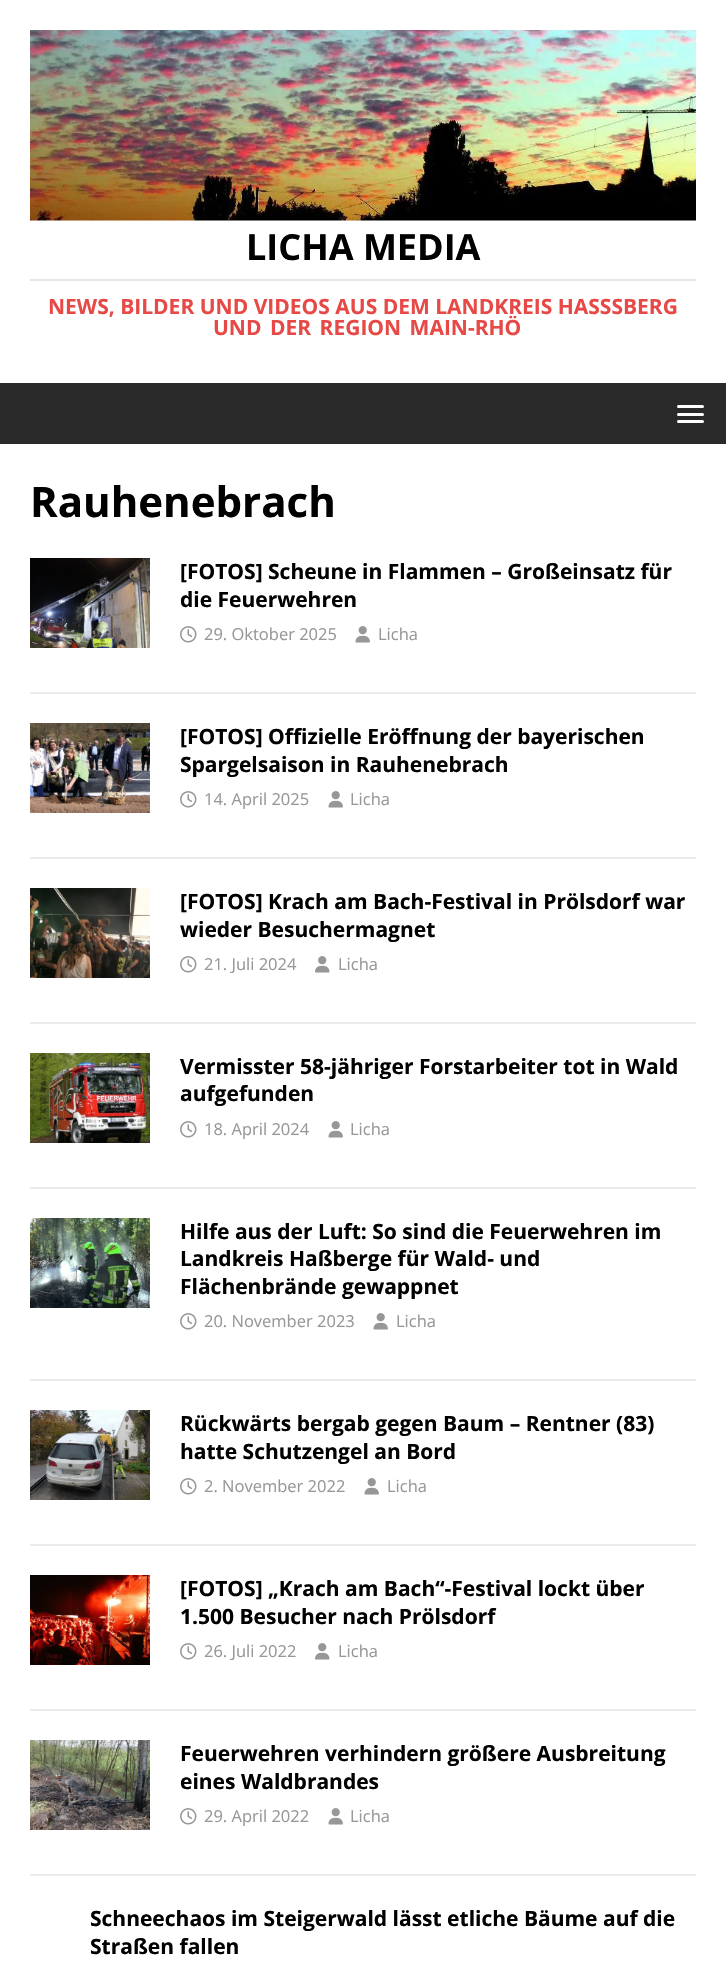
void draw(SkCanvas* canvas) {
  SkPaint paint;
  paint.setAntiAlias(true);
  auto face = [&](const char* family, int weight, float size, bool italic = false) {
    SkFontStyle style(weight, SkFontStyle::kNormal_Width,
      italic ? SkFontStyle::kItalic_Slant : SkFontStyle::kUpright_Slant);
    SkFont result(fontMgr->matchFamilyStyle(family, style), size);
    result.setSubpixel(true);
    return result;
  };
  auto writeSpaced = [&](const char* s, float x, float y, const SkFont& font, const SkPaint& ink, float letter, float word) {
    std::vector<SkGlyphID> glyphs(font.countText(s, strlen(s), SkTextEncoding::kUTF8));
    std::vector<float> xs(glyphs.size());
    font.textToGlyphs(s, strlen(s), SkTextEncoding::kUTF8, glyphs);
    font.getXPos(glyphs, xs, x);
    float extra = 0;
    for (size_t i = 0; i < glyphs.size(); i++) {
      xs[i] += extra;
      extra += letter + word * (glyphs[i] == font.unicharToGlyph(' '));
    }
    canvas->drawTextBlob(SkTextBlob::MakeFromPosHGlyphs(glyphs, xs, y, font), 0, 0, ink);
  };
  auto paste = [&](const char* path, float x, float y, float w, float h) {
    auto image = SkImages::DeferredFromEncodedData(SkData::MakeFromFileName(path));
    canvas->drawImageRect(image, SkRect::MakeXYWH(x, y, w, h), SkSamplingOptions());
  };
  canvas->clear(0xffffffff);
  paste("img/1.png", 30, 30, 666, 191);
  paint.setColor(0xffe5e5e5);
  canvas->drawRect(SkRect::MakeXYWH(30, 279, 666, 2), paint);
  paint.setColor(0xff2a2a2a);
  canvas->drawRect(SkRect::MakeXYWH(0, 383, 726, 61), paint);
  paint.setColor(0xffffffff);
  canvas->drawRoundRect(SkRect::MakeXYWH(677, 405, 27, 3), 1.5f, 1.5f, paint);
  canvas->drawRoundRect(SkRect::MakeXYWH(677, 413, 27, 3), 1.5f, 1.5f, paint);
  canvas->drawRoundRect(SkRect::MakeXYWH(677, 420, 27, 3), 1.5f, 1.5f, paint);
  paint.setColor(0xffebebeb);
  canvas->drawRect(SkRect::MakeXYWH(30, 692, 666, 2), paint);
  paste("img/2.png", 30, 558, 120, 90);
  paste("img/3.png", 180, 626, 17, 17);
  paste("img/4.png", 355, 626, 15, 17);
  canvas->drawRect(SkRect::MakeXYWH(30, 857, 666, 2), paint);
  paste("img/5.png", 30, 723, 120, 90);
  paste("img/3.png", 180, 791, 17, 17);
  paste("img/4.png", 328, 791, 15, 17);
  canvas->drawRect(SkRect::MakeXYWH(30, 1022, 666, 2), paint);
  paste("img/6.png", 30, 888, 120, 90);
  paste("img/3.png", 180, 956, 17, 17);
  paste("img/7.png", 315, 956, 15, 17);
  canvas->drawRect(SkRect::MakeXYWH(30, 1187, 666, 2), paint);
  paste("img/8.png", 30, 1053, 120, 90);
  paste("img/3.png", 180, 1121, 17, 17);
  paste("img/4.png", 328, 1121, 15, 17);
  canvas->drawRect(SkRect::MakeXYWH(30, 1379, 666, 2), paint);
  paste("img/9.png", 30, 1218, 120, 90);
  paste("img/3.png", 180, 1313, 17, 17);
  paste("img/4.png", 373, 1313, 15, 17);
  canvas->drawRect(SkRect::MakeXYWH(30, 1544, 666, 2), paint);
  paste("img/10.png", 30, 1410, 120, 90);
  paste("img/3.png", 180, 1478, 17, 17);
  paste("img/4.png", 364, 1478, 15, 17);
  canvas->drawRect(SkRect::MakeXYWH(30, 1709, 666, 2), paint);
  paste("img/11.png", 30, 1575, 120, 90);
  paste("img/3.png", 180, 1643, 17, 17);
  paste("img/7.png", 315, 1643, 15, 17);
  canvas->drawRect(SkRect::MakeXYWH(30, 1874, 666, 2), paint);
  paste("img/12.png", 30, 1740, 120, 90);
  paste("img/3.png", 180, 1808, 17, 17);
  paste("img/4.png", 328, 1808, 15, 17);
  auto f0 = face("Open Sans", 700, 36);
  paint.setColor(0xff000000);
  canvas->drawString("LICHA MEDIA", 246, 260, f0, paint);
  auto f1 = face("Open Sans", 700, 21);
  paint.setColor(0xffe64946);
  canvas->drawString("NEWS, BILDER UND VIDEOS AUS DEM LANDKREIS HASSSBERG", 48, 314, f1, paint);
  writeSpaced("UND DER REGION MAIN-RHÖ", 213, 335, f1, paint, 0, 3);
  auto f2 = face("Open Sans", 700, 42);
  paint.setColor(0xff000000);
  canvas->drawString("Rauhenebrach", 30, 517, f2, paint);
  canvas->drawString("[FOTOS] Scheune in Flammen – Großeinsatz für", 180, 579, f1, paint);
  canvas->drawString("die Feuerwehren", 180, 607, f1, paint);
  auto f3 = face("Open Sans", 400, 16.5f);
  paint.setColor(0xff979797);
  canvas->drawString("29. Oktober 2025", 204, 640, f3, paint);
  canvas->drawString("Licha", 378, 640, f3, paint);
  paint.setColor(0xff000000);
  canvas->drawString("[FOTOS] Offizielle Eröffnung der bayerischen", 180, 744, f1, paint);
  canvas->drawString("Spargelsaison in Rauhenebrach", 180, 772, f1, paint);
  paint.setColor(0xff979797);
  canvas->drawString("14. April 2025", 204, 805, f3, paint);
  canvas->drawString("Licha", 350, 805, f3, paint);
  paint.setColor(0xff000000);
  canvas->drawString("[FOTOS] Krach am Bach-Festival in Prölsdorf war", 180, 909, f1, paint);
  canvas->drawString("wieder Besuchermagnet", 180, 937, f1, paint);
  paint.setColor(0xff979797);
  canvas->drawString("21. Juli 2024", 204, 970, f3, paint);
  canvas->drawString("Licha", 338, 970, f3, paint);
  paint.setColor(0xff000000);
  canvas->drawString("Vermisster 58-jähriger Forstarbeiter tot in Wald", 180, 1074, f1, paint);
  canvas->drawString("aufgefunden", 180, 1101, f1, paint);
  paint.setColor(0xff979797);
  canvas->drawString("18. April 2024", 204, 1135, f3, paint);
  canvas->drawString("Licha", 350, 1135, f3, paint);
  paint.setColor(0xff000000);
  {
    const struct { const char* s; float x, y; } items[] = {
      {"Hilfe aus der Luft: So sind die Feuerwehren im", 180, 1239},
      {"Landkreis Haßberge für Wald- und", 180, 1266},
      {"Flächenbrände gewappnet", 180, 1294},
    };
    for (auto [s, x, y] : items) {
      canvas->drawString(s, x, y, f1, paint);
    }
  }
  paint.setColor(0xff979797);
  canvas->drawString("20. November 2023", 204, 1327, f3, paint);
  canvas->drawString("Licha", 396, 1327, f3, paint);
  paint.setColor(0xff000000);
  canvas->drawString("Rückwärts bergab gegen Baum – Rentner (83)", 180, 1431, f1, paint);
  canvas->drawString("hatte Schutzengel an Bord", 180, 1459, f1, paint);
  paint.setColor(0xff979797);
  canvas->drawString("2. November 2022", 204, 1492, f3, paint);
  canvas->drawString("Licha", 387, 1492, f3, paint);
  paint.setColor(0xff000000);
  canvas->drawString("[FOTOS] „Krach am Bach“-Festival lockt über", 180, 1596, f1, paint);
  canvas->drawString("1.500 Besucher nach Prölsdorf", 180, 1624, f1, paint);
  paint.setColor(0xff979797);
  canvas->drawString("26. Juli 2022", 204, 1657, f3, paint);
  canvas->drawString("Licha", 338, 1657, f3, paint);
  paint.setColor(0xff000000);
  canvas->drawString("Feuerwehren verhindern größere Ausbreitung", 180, 1761, f1, paint);
  canvas->drawString("eines Waldbrandes", 180, 1789, f1, paint);
  paint.setColor(0xff979797);
  canvas->drawString("29. April 2022", 204, 1822, f3, paint);
  canvas->drawString("Licha", 350, 1822, f3, paint);
  paint.setColor(0xff000000);
  canvas->drawString("Schneechaos im Steigerwald lässt etliche Bäume auf die", 90, 1926, f1, paint);
  canvas->drawString("Straßen fallen", 90, 1954, f1, paint);
}
